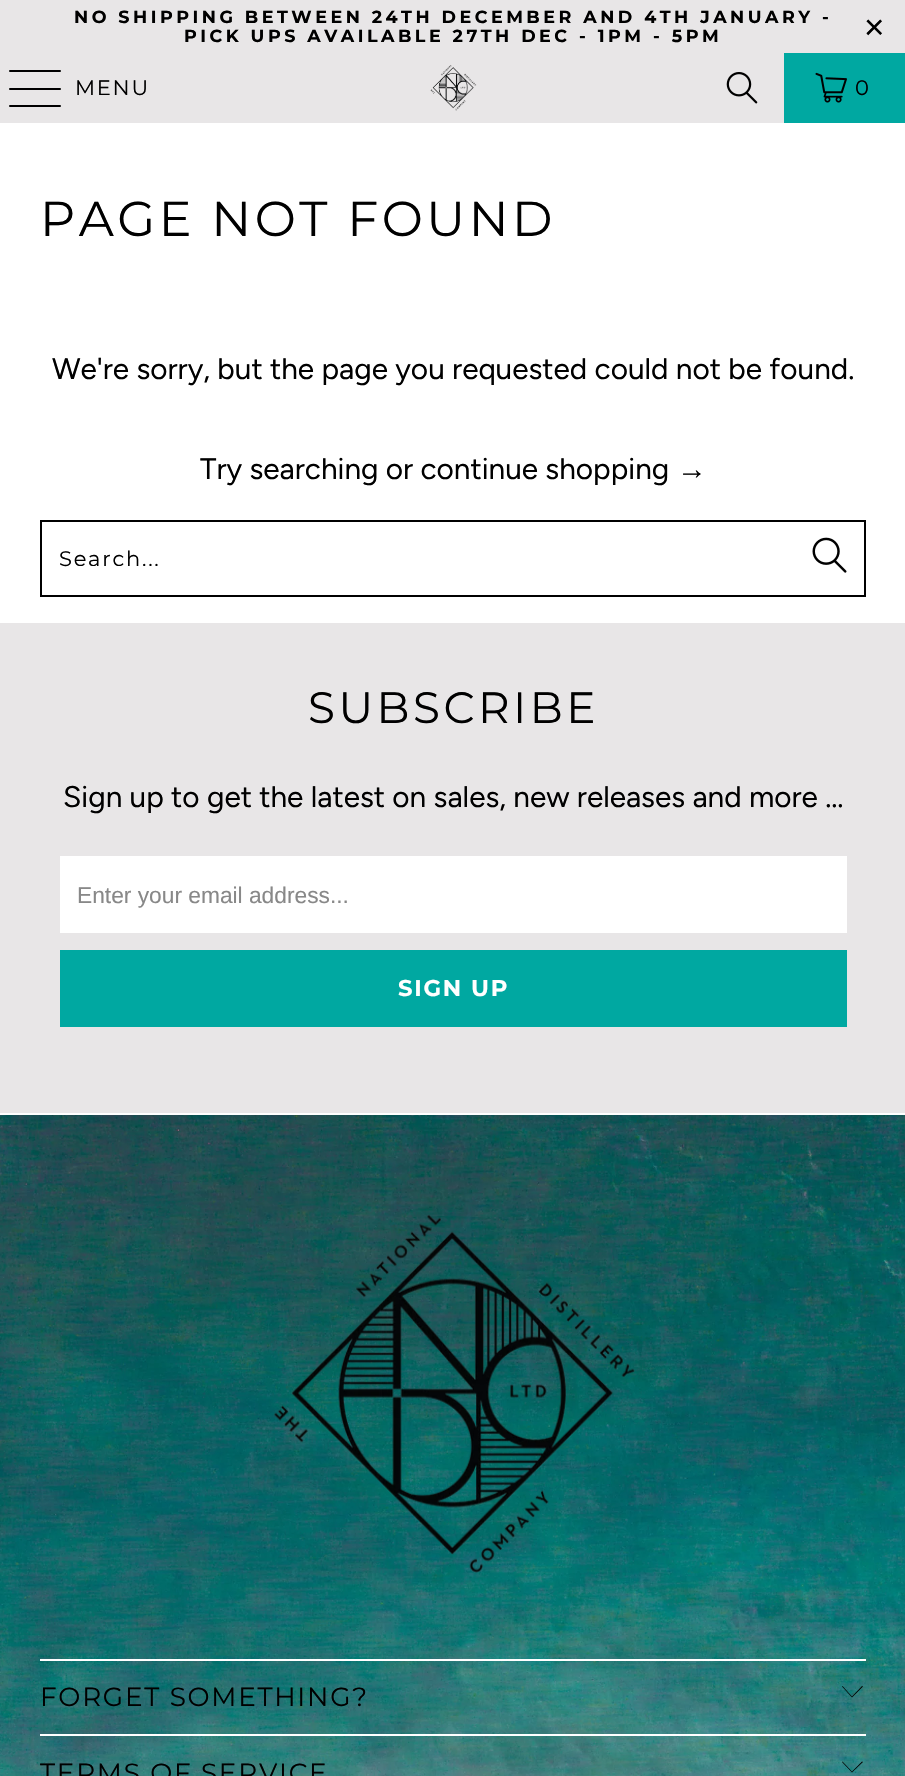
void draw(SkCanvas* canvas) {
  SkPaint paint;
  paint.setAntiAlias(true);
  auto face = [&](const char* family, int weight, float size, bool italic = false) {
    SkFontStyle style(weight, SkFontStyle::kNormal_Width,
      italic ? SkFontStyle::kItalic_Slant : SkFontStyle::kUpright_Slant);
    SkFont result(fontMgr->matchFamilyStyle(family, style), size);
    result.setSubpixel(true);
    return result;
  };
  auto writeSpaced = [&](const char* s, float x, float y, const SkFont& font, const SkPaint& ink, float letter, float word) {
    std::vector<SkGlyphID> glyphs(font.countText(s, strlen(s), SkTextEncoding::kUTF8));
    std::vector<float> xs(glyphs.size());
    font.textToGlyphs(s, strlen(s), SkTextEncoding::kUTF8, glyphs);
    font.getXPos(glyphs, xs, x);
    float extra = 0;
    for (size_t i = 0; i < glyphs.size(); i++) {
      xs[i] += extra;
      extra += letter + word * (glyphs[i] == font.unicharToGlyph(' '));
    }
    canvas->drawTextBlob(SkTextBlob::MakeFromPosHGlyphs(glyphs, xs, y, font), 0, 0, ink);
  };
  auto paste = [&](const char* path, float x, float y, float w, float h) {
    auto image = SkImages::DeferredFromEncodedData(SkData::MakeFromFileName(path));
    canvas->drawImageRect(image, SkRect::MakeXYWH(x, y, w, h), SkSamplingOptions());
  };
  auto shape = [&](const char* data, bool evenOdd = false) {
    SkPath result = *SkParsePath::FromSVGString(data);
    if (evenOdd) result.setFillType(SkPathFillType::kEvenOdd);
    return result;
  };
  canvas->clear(0xffffffff);
  paint.setColor(0xffe8e6e7);
  canvas->drawRect(SkRect::MakeXYWH(0, 0, 905, 53), paint);
  canvas->drawRect(SkRect::MakeXYWH(0, 53, 784, 70), paint);
  paint.setColor(0xff000000);
  canvas->drawRoundRect(SkRect::MakeXYWH(9, 70, 52, 2), 1, 1, paint);
  canvas->drawRoundRect(SkRect::MakeXYWH(9, 88, 52, 2), 1, 1, paint);
  canvas->drawRoundRect(SkRect::MakeXYWH(9, 105, 52, 2), 1, 1, paint);
  paste("img/1.png", 430, 65, 47, 46);
  paste("img/2.png", 726, 72, 32, 32);
  paint.setColor(0xff00a8a1);
  canvas->drawRect(SkRect::MakeXYWH(784, 53, 121, 70), paint);
  paste("img/3.png", 815, 72, 32, 31);
  paint.setStroke(true);
  paint.setStrokeWidth(2);
  paint.setColor(0xff000000);
  canvas->drawRect(SkRect::MakeXYWH(41, 521, 824, 75), paint);
  paste("img/4.png", 812, 537, 35, 36);
  paint.setStroke(false);
  {
    const struct { float x, y, w, h; SkColor color; } items[] = {
      {0, 623, 905, 490, 0xffe8e6e7},
      {60, 856, 787, 77, 0xffffffff},
      {60, 950, 787, 77, 0xff00a8a1},
    };
    for (auto [x, y, w, h, color] : items) {
      paint.setColor(color);
      canvas->drawRect(SkRect::MakeXYWH(x, y, w, h), paint);
    }
  }
  paste("img/5.png", 0, 1115, 905, 661);
  paste("img/6.png", 274, 1214, 361, 359);
  paint.setColor(0xffffffff);
  canvas->drawRect(SkRect::MakeXYWH(40, 1659, 826, 2), paint);
  paint.setColor(0xff000000);
  canvas->drawPath(shape("M852 1697.5L842 1686.5L842.5 1686L852 1696.5L862 1686L863 1686.5Z"), paint);
  paint.setColor(0xffffffff);
  canvas->drawRect(SkRect::MakeXYWH(40, 1734, 826, 2), paint);
  paint.setColor(0xff000000);
  canvas->drawPath(shape("M852 1772.5L842 1762L842.5 1761.5L852 1771.5L862 1761.5L863 1762Z"), paint);
  auto f0 = face("Montserrat", 700, 17.5f);
  writeSpaced("NO SHIPPING BETWEEN 24TH DECEMBER AND 4TH JANUARY -", 74, 23, f0, paint, 3.5f, 0);
  writeSpaced("PICK UPS AVAILABLE 27TH DEC - 1PM - 5PM", 184, 42, f0, paint, 3.5f, 0);
  auto f1 = face("Liberation Sans", 400, 35);
  writeSpaced("×", 864, 39, f1, paint, 3.5f, 0);
  auto f2 = face("Montserrat", 400, 21);
  writeSpaced("MENU", 75, 95, f2, paint, 1.75f, 0);
  writeSpaced("0", 855, 95, f2, paint, 1.75f, 0);
  auto f3 = face("Montserrat", 400, 49);
  writeSpaced("PAGE NOT FOUND", 40, 236, f3, paint, 3.5f, 0);
  auto f4 = face("Figtree", 400, 29.75f);
  canvas->drawString("We're sorry, but the page you requested could not be found.", 52, 379, f4, paint);
  canvas->drawString("Try searching or continue shopping", 200, 479, f4, paint);
  auto f5 = face("Liberation Sans", 400, 29.75f);
  canvas->drawString("→", 677, 479, f5, paint);
  writeSpaced("Search...", 59, 566, f2, paint, 1.75f, 0);
  auto f6 = face("Montserrat", 400, 43.75f);
  writeSpaced("SUBSCRIBE", 308, 723, f6, paint, 3.5f, 0);
  canvas->drawString("Sign up to get the latest on sales, new releases and more …", 63, 807, f4, paint);
  auto f7 = face("Liberation Sans", 400, 22.75f);
  paint.setColor(0xff888888);
  canvas->drawString("Enter your email address...", 77, 903, f7, paint);
  auto f8 = face("Montserrat", 700, 22.75f);
  paint.setColor(0xffffffff);
  writeSpaced("SIGN UP", 398, 996, f8, paint, 1.75f, 0);
  auto f9 = face("Montserrat", 400, 26.25f);
  paint.setColor(0xff000000);
  writeSpaced("FORGET SOMETHING?", 40, 1706, f9, paint, 1.75f, 0);
  writeSpaced("TERMS OF SERVICE", 40, 1782, f9, paint, 1.75f, 0);
}
